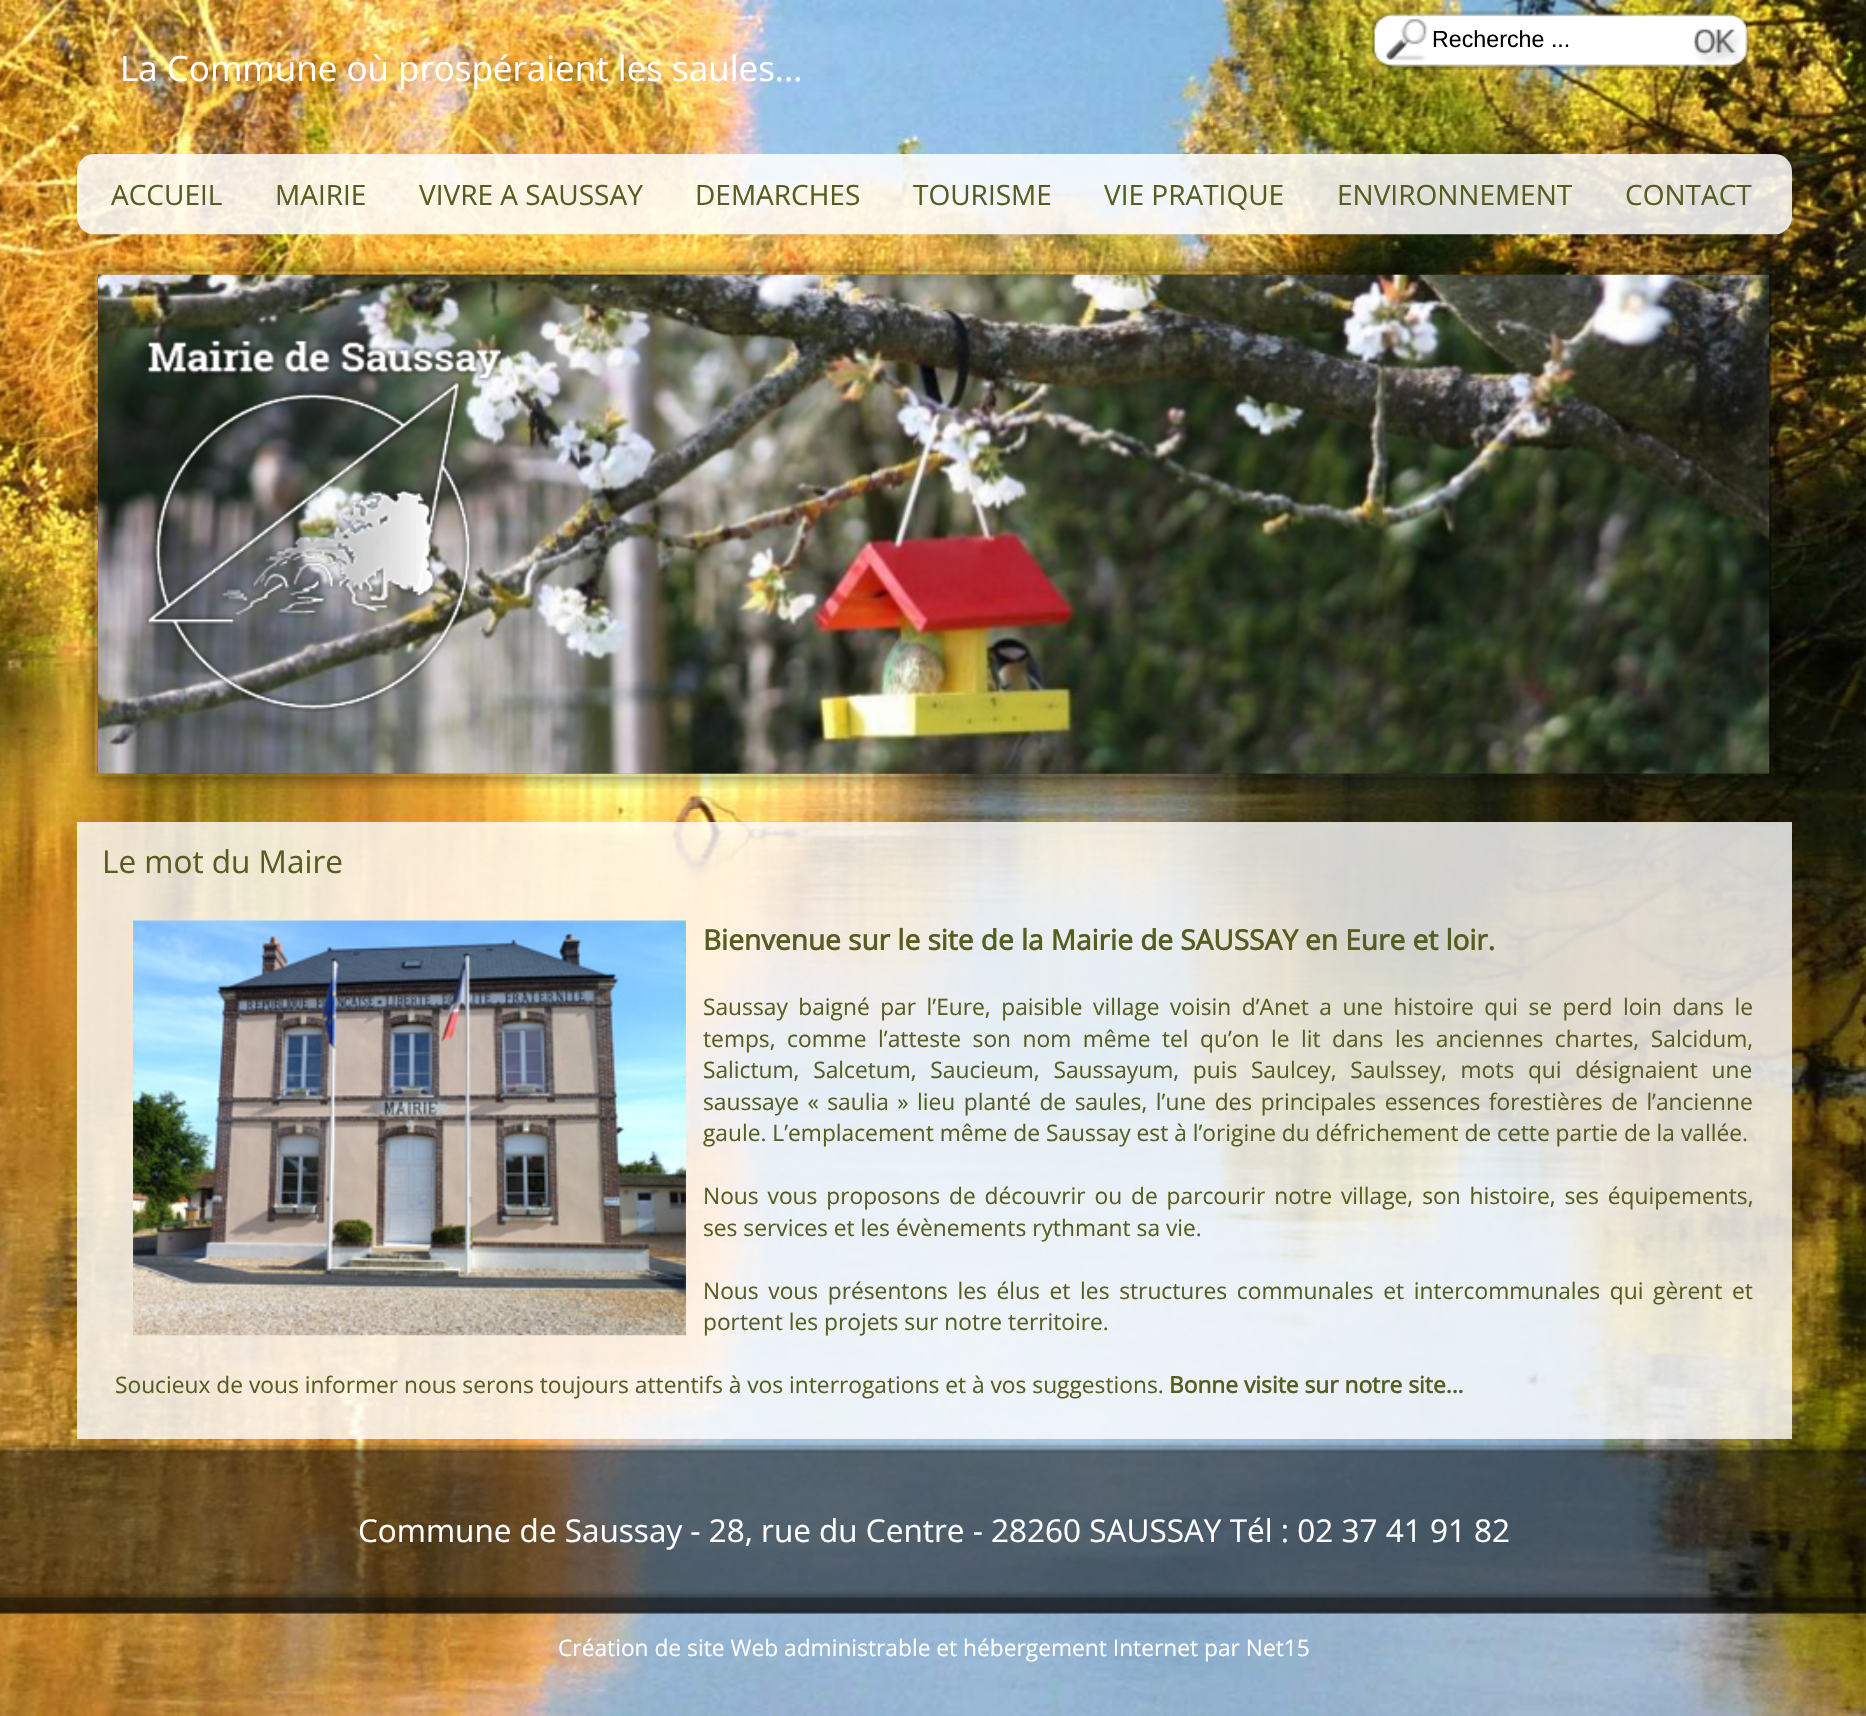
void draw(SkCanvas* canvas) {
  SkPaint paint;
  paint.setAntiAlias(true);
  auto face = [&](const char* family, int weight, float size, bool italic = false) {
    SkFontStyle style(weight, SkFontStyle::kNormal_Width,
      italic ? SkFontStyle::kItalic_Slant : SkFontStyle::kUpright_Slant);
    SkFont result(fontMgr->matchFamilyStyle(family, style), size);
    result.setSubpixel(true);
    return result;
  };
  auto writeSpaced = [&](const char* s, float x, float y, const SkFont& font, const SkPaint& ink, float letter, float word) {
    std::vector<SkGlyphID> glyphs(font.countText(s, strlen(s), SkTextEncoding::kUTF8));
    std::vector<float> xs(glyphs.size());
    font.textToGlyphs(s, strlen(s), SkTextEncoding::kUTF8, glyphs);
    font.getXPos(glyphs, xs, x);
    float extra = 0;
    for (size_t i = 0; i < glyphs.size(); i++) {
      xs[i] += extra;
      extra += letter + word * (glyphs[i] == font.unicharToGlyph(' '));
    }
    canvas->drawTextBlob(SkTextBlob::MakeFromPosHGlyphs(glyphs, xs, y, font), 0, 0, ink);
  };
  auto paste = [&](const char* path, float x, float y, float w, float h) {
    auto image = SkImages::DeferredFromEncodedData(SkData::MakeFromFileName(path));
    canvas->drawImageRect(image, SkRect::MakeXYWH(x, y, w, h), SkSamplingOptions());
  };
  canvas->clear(0xffffffff);
  paste("img/1.png", 0, 0, 1866, 1716);
  paste("img/2.png", 1372, 10, 377, 60);
  paste("img/3.png", 77, 154, 1715, 81);
  paste("img/4.png", 82, 259, 1705, 530);
  paste("img/5.png", 98, 274, 1672, 500);
  paste("img/6.png", 98, 274, 1672, 500);
  paste("img/7.png", 145, 336, 358, 376);
  paint.setColor(0xccffffff);
  canvas->drawRect(SkRect::MakeXYWH(77, 822, 1715, 617), paint);
  paste("img/8.png", 133, 920, 553, 416);
  paste("img/9.png", 0, 1443, 1866, 171);
  auto f0 = face("Liberation Sans", 400, 23.25f);
  paint.setColor(0xff000000);
  canvas->drawString("Recherche ...", 1432, 47, f0, paint);
  auto f1 = face("Open Sans", 400, 35);
  paint.setColor(0xffffffff);
  canvas->drawString("La Commune où prospéraient les saules...", 120, 81, f1, paint);
  auto f2 = face("Open Sans", 400, 28);
  paint.setColor(0xff575d20);
  {
    const struct { const char* s; float x, y; } items[] = {
      {"ACCUEIL", 111, 205},
      {"MAIRIE", 275, 205},
      {"VIVRE A SAUSSAY", 419, 205},
      {"DEMARCHES", 695, 205},
      {"TOURISME", 913, 205},
      {"VIE PRATIQUE", 1104, 205},
      {"ENVIRONNEMENT", 1337, 205},
      {"CONTACT", 1625, 205},
    };
    for (auto [s, x, y] : items) {
      canvas->drawString(s, x, y, f2, paint);
    }
  }
  auto f3 = face("Open Sans", 400, 31.5f);
  canvas->drawString("Le mot du Maire", 102, 873, f3, paint);
  auto f4 = face("Open Sans", 700, 28);
  canvas->drawString("Bienvenue sur le site de la Mairie de SAUSSAY en Eure et loir.", 703, 950, f4, paint);
  auto f5 = face("Open Sans", 400, 22.75f);
  writeSpaced("Saussay baigné par l’Eure, paisible village voisin d’Anet a une histoire qui se perd loin dans le", 703, 1015, f5, paint, 0, 4.6f);
  writeSpaced("temps, comme l’atteste son nom même tel qu’on le lit dans les anciennes chartes, Salcidum,", 703, 1047, f5, paint, 0, 5.6f);
  writeSpaced("Salictum, Salcetum, Saucieum, Saussayum, puis Saulcey, Saulssey, mots qui désignaient une", 703, 1078, f5, paint, 0, 7.75f);
  writeSpaced("saussaye « saulia » lieu planté de saules, l’une des principales essences forestières de l’ancienne", 703, 1110, f5, paint, 0, 2.6f);
  canvas->drawString("gaule. L’emplacement même de Saussay est à l’origine du défrichement de cette partie de la vallée.", 703, 1141, f5, paint);
  writeSpaced("Nous vous proposons de découvrir ou de parcourir notre village, son histoire, ses équipements,", 703, 1204, f5, paint, 0, 3);
  canvas->drawString("ses services et les évènements rythmant sa vie.", 703, 1236, f5, paint);
  writeSpaced("Nous vous présentons les élus et les structures communales et intercommunales qui gèrent et", 703, 1299, f5, paint, 0, 3.75f);
  canvas->drawString("portent les projets sur notre territoire.", 703, 1330, f5, paint);
  canvas->drawString("Soucieux de vous informer nous serons toujours attentifs à vos interrogations et à vos suggestions.", 115, 1393, f5, paint);
  auto f6 = face("Open Sans", 700, 22.75f);
  canvas->drawString("Bonne visite sur notre site...", 1169, 1393, f6, paint);
  paint.setColor(0xffffffff);
  canvas->drawString("Commune de Saussay - 28, rue du Centre - 28260 SAUSSAY Tél : 02 37 41 91 82", 358, 1542, f3, paint);
  canvas->drawString("Création de site Web administrable et hébergement Internet par Net15", 558, 1656, f5, paint);
}
